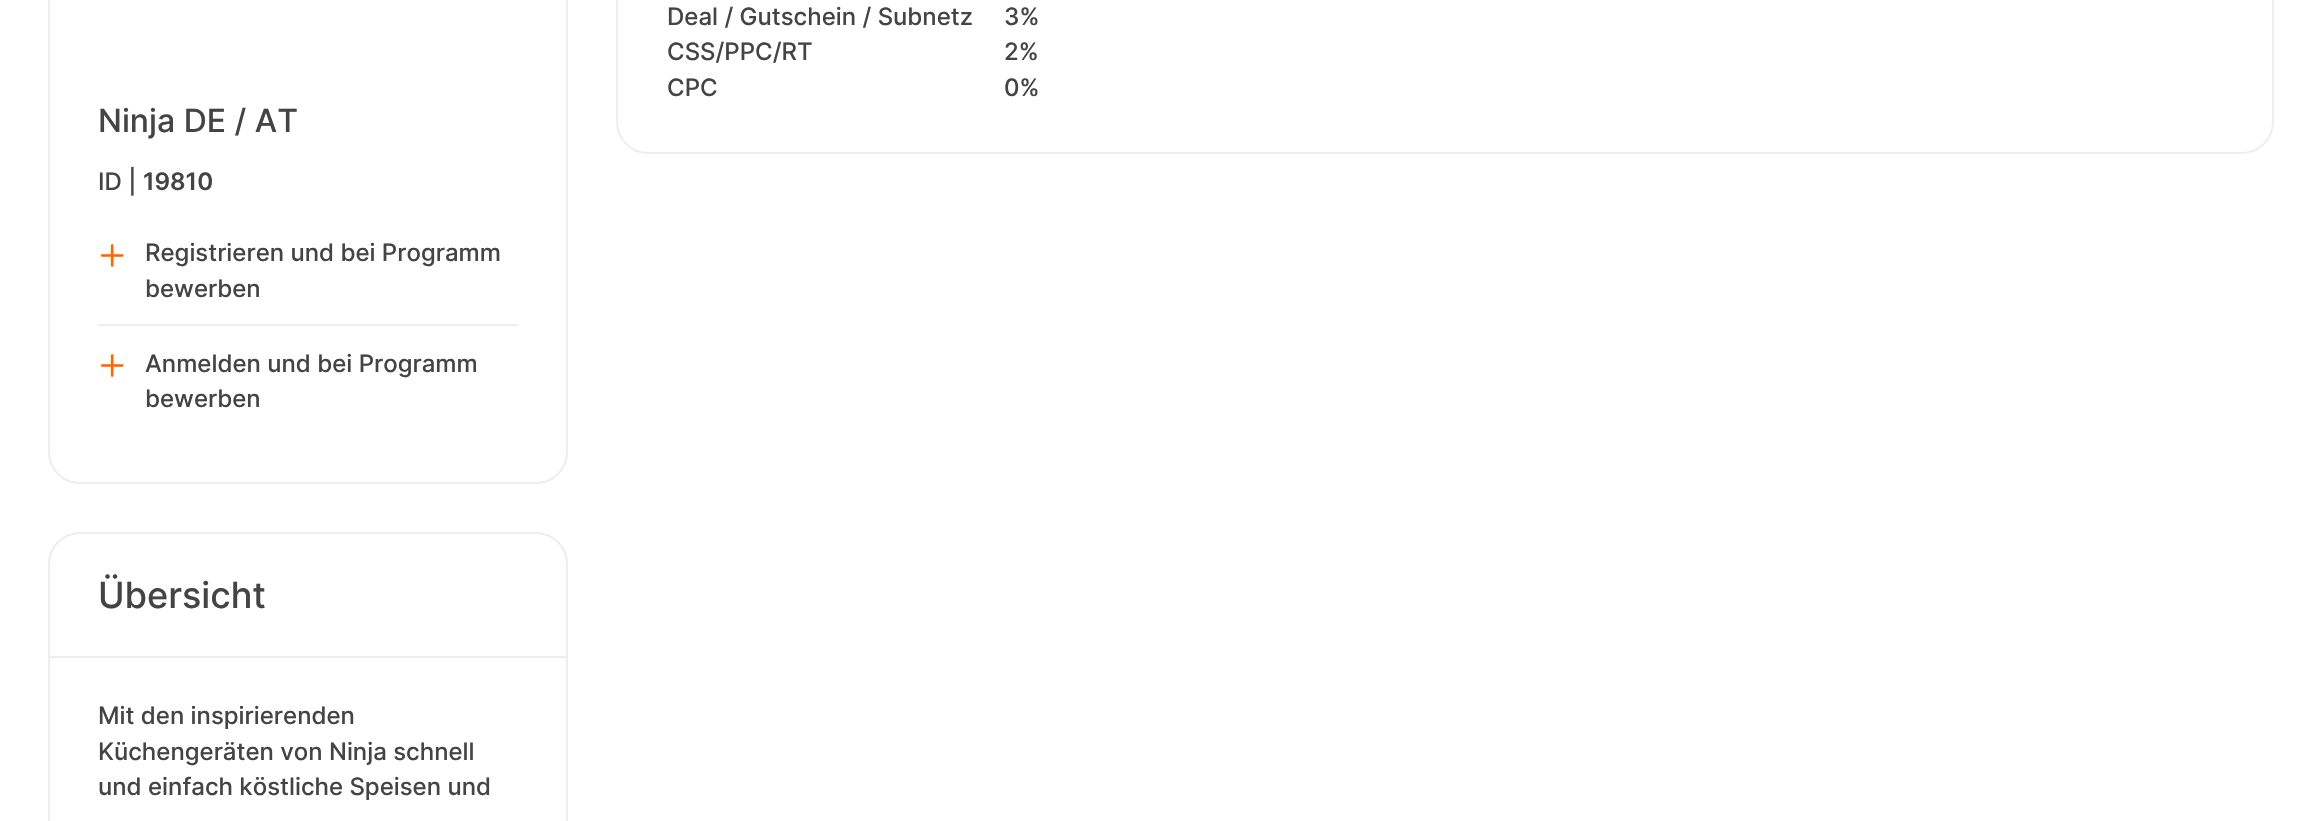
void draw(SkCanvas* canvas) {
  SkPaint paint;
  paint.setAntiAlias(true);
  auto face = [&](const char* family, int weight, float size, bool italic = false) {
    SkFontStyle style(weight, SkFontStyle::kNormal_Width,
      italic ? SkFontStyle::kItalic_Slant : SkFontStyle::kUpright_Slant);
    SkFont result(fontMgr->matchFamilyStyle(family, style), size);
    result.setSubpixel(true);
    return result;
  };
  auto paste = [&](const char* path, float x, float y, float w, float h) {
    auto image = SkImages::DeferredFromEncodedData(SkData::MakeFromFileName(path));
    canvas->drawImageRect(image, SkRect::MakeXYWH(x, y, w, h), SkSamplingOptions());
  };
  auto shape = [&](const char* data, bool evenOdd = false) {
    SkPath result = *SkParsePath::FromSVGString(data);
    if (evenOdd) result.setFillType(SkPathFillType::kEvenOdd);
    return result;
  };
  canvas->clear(0xffffffff);
  paint.setStroke(true);
  paint.setStrokeWidth(2);
  paint.setColor(0xffeeeeee);
  canvas->drawPath(shape("M617-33H2273V122C2273 139 2259 153 2242 153H648C631 153 617 139 617 122Z"), paint);
  canvas->drawRoundRect(SkRect::MakeXYWH(49, -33, 518, 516), 31, 31, paint);
  paste("img/1.png", 100, 244, 24, 23);
  paint.setStroke(false);
  canvas->drawRect(SkRect::MakeXYWH(98, 324, 420, 2), paint);
  paste("img/1.png", 100, 354, 24, 23);
  paint.setStroke(true);
  canvas->drawRoundRect(SkRect::MakeXYWH(49, 533, 518, 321), 31, 31, paint);
  paint.setStroke(false);
  canvas->drawRect(SkRect::MakeXYWH(50, 656, 516, 2), paint);
  auto f0 = face("Inter", 500, 24);
  paint.setColor(0xff444444);
  {
    const struct { const char* s; float x, y; } items[] = {
      {"Deal / Gutschein / Subnetz", 667, 25},
      {"3%", 1004, 25},
      {"CSS/PPC/RT", 667, 60},
      {"2%", 1004, 60},
      {"CPC", 667, 96},
      {"0%", 1004, 96},
    };
    for (auto [s, x, y] : items) {
      canvas->drawString(s, x, y, f0, paint);
    }
  }
  auto f1 = face("Inter", 500, 32);
  canvas->drawString("Ninja DE / AT", 98, 132, f1, paint);
  canvas->drawString("ID |", 98, 190, f0, paint);
  auto f2 = face("Inter", 600, 24);
  canvas->drawString("19810", 143, 190, f2, paint);
  {
    const struct { const char* s; float x, y; } items[] = {
      {"Registrieren und bei Programm", 145, 261},
      {"bewerben", 145, 297},
      {"Anmelden und bei Programm", 145, 372},
      {"bewerben", 145, 407},
    };
    for (auto [s, x, y] : items) {
      canvas->drawString(s, x, y, f0, paint);
    }
  }
  auto f3 = face("Inter", 500, 36);
  canvas->drawString("Übersicht", 98, 608, f3, paint);
  {
    const struct { const char* s; float x, y; } items[] = {
      {"Mit den inspirierenden", 98, 724},
      {"Küchengeräten von Ninja schnell", 98, 760},
      {"und einfach köstliche Speisen und", 98, 795},
    };
    for (auto [s, x, y] : items) {
      canvas->drawString(s, x, y, f0, paint);
    }
  }
}
